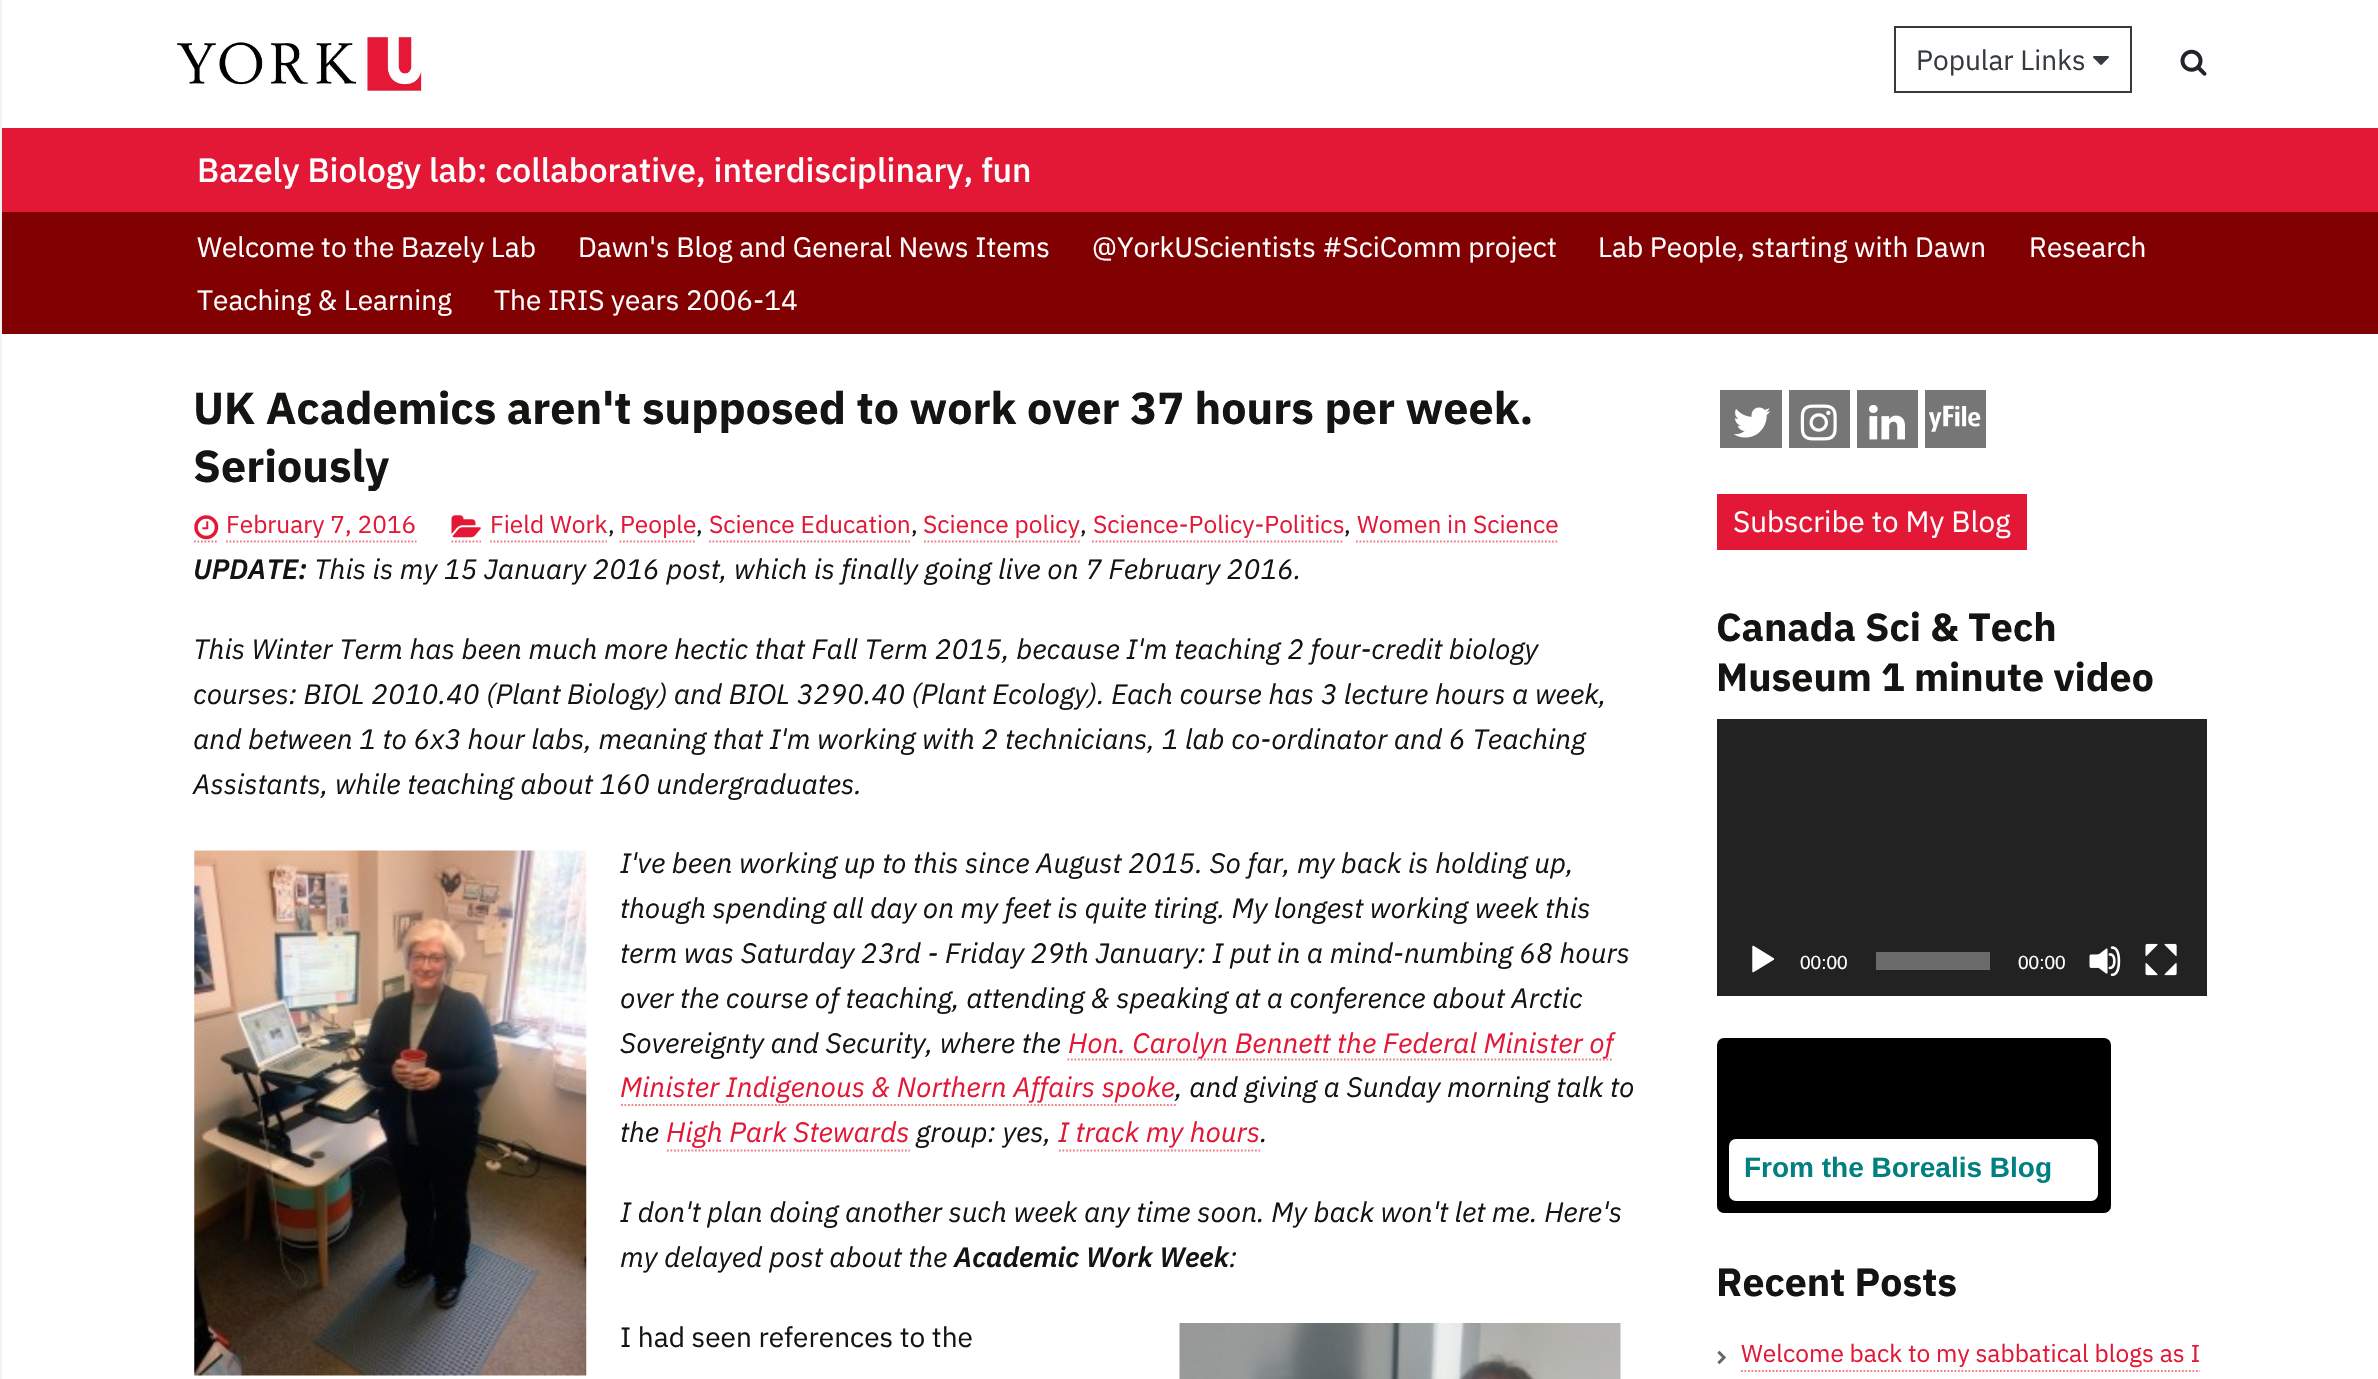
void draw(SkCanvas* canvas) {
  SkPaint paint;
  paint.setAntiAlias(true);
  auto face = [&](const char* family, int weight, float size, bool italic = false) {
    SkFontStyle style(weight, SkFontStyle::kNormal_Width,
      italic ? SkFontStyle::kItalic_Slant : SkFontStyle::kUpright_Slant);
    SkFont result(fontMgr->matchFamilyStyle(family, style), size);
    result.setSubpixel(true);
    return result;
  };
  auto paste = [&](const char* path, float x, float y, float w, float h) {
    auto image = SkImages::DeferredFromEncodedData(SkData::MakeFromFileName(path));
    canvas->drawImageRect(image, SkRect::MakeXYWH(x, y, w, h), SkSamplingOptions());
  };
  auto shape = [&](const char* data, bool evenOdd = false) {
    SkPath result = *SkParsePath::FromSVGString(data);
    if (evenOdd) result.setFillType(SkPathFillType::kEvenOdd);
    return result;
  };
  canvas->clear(0xffffffff);
  paint.setColor(0xfff2f2f2);
  canvas->drawRect(SkRect::MakeXYWH(0, 0, 2, 1379), paint);
  paste("img/1.png", 176, 36, 246, 55);
  paint.setStroke(true);
  paint.setStrokeWidth(2);
  paint.setColor(0xff343a40);
  canvas->drawRect(SkRect::MakeXYWH(1895, 27, 236, 65), paint);
  paste("img/2.png", 2093, 56, 16, 9);
  paste("img/3.png", 2180, 49, 27, 27);
  paint.setStroke(false);
  paint.setColor(0xffe31837);
  canvas->drawRect(SkRect::MakeXYWH(2, 128, 2376, 84), paint);
  paint.setColor(0xff810001);
  canvas->drawRect(SkRect::MakeXYWH(2, 212, 2376, 122), paint);
  paint.setStroke(true);
  paint.setStrokeWidth(1.8f);
  paint.setColor(0xffee7d88);
  paint.setPathEffect(SkDashPathEffect::Make({{1.75f, 1.75f}}, 0));
  canvas->drawPath(shape("M194 541.5H217"), paint);
  paint.setPathEffect(nullptr);
  paint.setPathEffect(SkDashPathEffect::Make({{1.75f, 1.75f}}, 0));
  canvas->drawPath(shape("M226 541.5H416.5"), paint);
  paint.setPathEffect(nullptr);
  paste("img/4.png", 194, 515, 25, 25);
  paint.setPathEffect(SkDashPathEffect::Make({{1.75f, 1.75f}}, 0));
  canvas->drawPath(shape("M451.5 541.5H481"), paint);
  paint.setPathEffect(nullptr);
  paint.setPathEffect(SkDashPathEffect::Make({{1.75f, 1.75f}}, 0));
  canvas->drawPath(shape("M490 541.5H607"), paint);
  paint.setPathEffect(nullptr);
  paste("img/5.png", 451, 515, 30, 23);
  paint.setPathEffect(SkDashPathEffect::Make({{1.75f, 1.75f}}, 0));
  canvas->drawPath(shape("M619.5 541.5H696.5"), paint);
  paint.setPathEffect(nullptr);
  paint.setPathEffect(SkDashPathEffect::Make({{1.75f, 1.75f}}, 0));
  canvas->drawPath(shape("M709 541.5H910"), paint);
  paint.setPathEffect(nullptr);
  paint.setPathEffect(SkDashPathEffect::Make({{1.75f, 1.75f}}, 0));
  canvas->drawPath(shape("M924 541.5H1080"), paint);
  paint.setPathEffect(nullptr);
  paint.setPathEffect(SkDashPathEffect::Make({{1.75f, 1.75f}}, 0));
  canvas->drawPath(shape("M1092 541.5H1344"), paint);
  paint.setPathEffect(nullptr);
  paint.setPathEffect(SkDashPathEffect::Make({{1.75f, 1.75f}}, 0));
  canvas->drawPath(shape("M1356 541.5H1557.5"), paint);
  paint.setPathEffect(nullptr);
  paste("img/6.png", 194, 850, 393, 526);
  paint.setPathEffect(SkDashPathEffect::Make({{1.75f, 1.75f}}, 0));
  canvas->drawPath(shape("M1067.5 1059.5H1613.5"), paint);
  paint.setPathEffect(nullptr);
  paint.setPathEffect(SkDashPathEffect::Make({{1.75f, 1.75f}}, 0));
  canvas->drawPath(shape("M621 1105H1176"), paint);
  paint.setPathEffect(nullptr);
  paint.setPathEffect(SkDashPathEffect::Make({{1.75f, 1.75f}}, 0));
  canvas->drawPath(shape("M667 1150.5H910"), paint);
  paint.setPathEffect(nullptr);
  paint.setPathEffect(SkDashPathEffect::Make({{1.75f, 1.75f}}, 0));
  canvas->drawPath(shape("M1059 1150.5H1260"), paint);
  paint.setPathEffect(nullptr);
  paste("img/7.png", 1179, 1323, 442, 56);
  paint.setStroke(false);
  paint.setColor(0xff767676);
  canvas->drawRect(SkRect::MakeXYWH(1720, 390, 62, 58), paint);
  paste("img/8.png", 1733, 407, 38, 31);
  canvas->drawRect(SkRect::MakeXYWH(1789, 390, 61, 58), paint);
  paste("img/9.png", 1800, 404, 37, 37);
  canvas->drawRect(SkRect::MakeXYWH(1857, 390, 61, 58), paint);
  paste("img/10.png", 1869, 405, 36, 35);
  canvas->drawRect(SkRect::MakeXYWH(1925, 390, 61, 58), paint);
  paste("img/11.png", 1929, 405, 52, 27);
  paint.setColor(0xffe31837);
  canvas->drawRect(SkRect::MakeXYWH(1717, 494, 310, 56), paint);
  paint.setColor(0xff222222);
  canvas->drawRect(SkRect::MakeXYWH(1717, 719, 490, 277), paint);
  paste("img/12.png", 1752, 945, 23, 28);
  paint.setColor(0xff6b6b6b);
  canvas->drawRect(SkRect::MakeXYWH(1876, 952, 114, 18), paint);
  paste("img/13.png", 2089, 946, 32, 30);
  paste("img/14.png", 2145, 943, 32, 33);
  paint.setColor(0xff000000);
  canvas->drawRoundRect(SkRect::MakeXYWH(1719, 1040, 390, 171), 5, 5, paint);
  paint.setStroke(true);
  paint.setStrokeWidth(4);
  canvas->drawRoundRect(SkRect::MakeXYWH(1719, 1040, 390, 171), 5, 5, paint);
  paint.setStroke(false);
  paint.setColor(0xffffffff);
  canvas->drawRoundRect(SkRect::MakeXYWH(1731, 1141, 365, 58), 5, 5, paint);
  paint.setStroke(true);
  canvas->drawRoundRect(SkRect::MakeXYWH(1731, 1141, 365, 58), 5, 5, paint);
  paste("img/15.png", 1717, 1350, 9, 14);
  paint.setStrokeWidth(1.8f);
  paint.setColor(0xffee7d88);
  paint.setPathEffect(SkDashPathEffect::Make({{1.75f, 1.75f}}, 0));
  canvas->drawPath(shape("M1741 1371H2200"), paint);
  paint.setPathEffect(nullptr);
  auto f0 = face("IBM Plex Sans", 400, 28);
  paint.setStroke(false);
  paint.setColor(0xff343a40);
  canvas->drawString("Popular Links", 1916, 70, f0, paint);
  auto f1 = face("IBM Plex Sans", 500, 33.6f);
  paint.setColor(0xffffffff);
  canvas->drawString("Bazely Biology lab: collaborative, interdisciplinary, fun", 197, 182, f1, paint);
  {
    const struct { const char* s; float x, y; } items[] = {
      {"Welcome to the Bazely Lab", 197, 257},
      {"Dawn's Blog and General News Items", 578, 257},
      {"@YorkUScientists #SciComm project", 1092, 257},
      {"Lab People, starting with Dawn", 1598, 257},
      {"Research", 2029, 257},
      {"Teaching & Learning", 197, 310},
      {"The IRIS years 2006-14", 494, 310},
    };
    for (auto [s, x, y] : items) {
      canvas->drawString(s, x, y, f0, paint);
    }
  }
  auto f2 = face("IBM Plex Sans", 700, 44.8f);
  paint.setColor(0xff141412);
  canvas->drawString("UK Academics aren't supposed to work over 37 hours per week.", 193, 424, f2, paint);
  canvas->drawString("Seriously", 193, 482, f2, paint);
  auto f3 = face("IBM Plex Sans", 400, 24.5f);
  paint.setColor(0xffe31837);
  canvas->drawString("February 7, 2016", 226, 533, f3, paint);
  canvas->drawString("Field Work", 490, 533, f3, paint);
  paint.setColor(0xff141412);
  canvas->drawString(",", 608, 533, f3, paint);
  paint.setColor(0xffe31837);
  canvas->drawString("People", 620, 533, f3, paint);
  paint.setColor(0xff141412);
  canvas->drawString(",", 696, 533, f3, paint);
  paint.setColor(0xffe31837);
  canvas->drawString("Science Education", 709, 533, f3, paint);
  paint.setColor(0xff141412);
  canvas->drawString(",", 911, 533, f3, paint);
  paint.setColor(0xffe31837);
  canvas->drawString("Science policy", 923, 533, f3, paint);
  paint.setColor(0xff141412);
  canvas->drawString(",", 1080, 533, f3, paint);
  paint.setColor(0xffe31837);
  canvas->drawString("Science-Policy-Politics", 1093, 533, f3, paint);
  paint.setColor(0xff141412);
  canvas->drawString(",", 1344, 533, f3, paint);
  paint.setColor(0xffe31837);
  canvas->drawString("Women in Science", 1357, 533, f3, paint);
  auto f4 = face("IBM Plex Sans", 600, 28, true);
  paint.setColor(0xff141412);
  canvas->drawString("UPDATE:", 193, 579, f4, paint);
  auto f5 = face("IBM Plex Sans", 400, 28, true);
  {
    const struct { const char* s; float x, y; } items[] = {
      {"This is my 15 January 2016 post, which is finally going live on 7 February 2016.", 314, 579},
      {"This Winter Term has been much more hectic that Fall Term 2015, because I'm teaching 2 four-credit biology", 193, 659},
      {"courses: BIOL 2010.40 (Plant Biology) and BIOL 3290.40 (Plant Ecology). Each course has 3 lecture hours a week,", 193, 704},
      {"and between 1 to 6x3 hour labs, meaning that I'm working with 2 technicians, 1 lab co-ordinator and 6 Teaching", 193, 749},
      {"Assistants, while teaching about 160 undergraduates.", 193, 794},
      {"I've been working up to this since August 2015. So far, my back is holding up,", 620, 873},
      {"though spending all day on my feet is quite tiring. My longest working week this", 620, 918},
      {"term was Saturday 23rd - Friday 29th January: I put in a mind-numbing 68 hours", 620, 963},
      {"over the course of teaching, attending & speaking at a conference about Arctic", 620, 1008},
      {"Sovereignty and Security, where the", 620, 1053},
    };
    for (auto [s, x, y] : items) {
      canvas->drawString(s, x, y, f5, paint);
    }
  }
  paint.setColor(0xffe31837);
  canvas->drawString("Hon. Carolyn Bennett the Federal Minister of", 1068, 1053, f5, paint);
  canvas->drawString("Minister Indigenous & Northern Affairs spoke", 620, 1097, f5, paint);
  paint.setColor(0xff141412);
  canvas->drawString(", and giving a Sunday morning talk to", 1175, 1097, f5, paint);
  canvas->drawString("the", 620, 1142, f5, paint);
  paint.setColor(0xffe31837);
  canvas->drawString("High Park Stewards", 666, 1142, f5, paint);
  paint.setColor(0xff141412);
  canvas->drawString("group: yes,", 916, 1142, f5, paint);
  paint.setColor(0xffe31837);
  canvas->drawString("I track my hours", 1058, 1142, f5, paint);
  paint.setColor(0xff141412);
  {
    const struct { const char* s; float x, y; } items[] = {
      {".", 1260, 1142},
      {"I don't plan doing another such week any time soon. My back won't let me. Here's", 620, 1222},
      {"my delayed post about the", 620, 1267},
    };
    for (auto [s, x, y] : items) {
      canvas->drawString(s, x, y, f5, paint);
    }
  }
  canvas->drawString("Academic Work Week", 954, 1267, f4, paint);
  canvas->drawString(":", 1229, 1267, f5, paint);
  canvas->drawString("I had seen references to the", 620, 1347, f0, paint);
  auto f6 = face("IBM Plex Sans", 400, 29.5f);
  paint.setColor(0xffffffff);
  canvas->drawString("Subscribe to My Blog", 1733, 532, f6, paint);
  auto f7 = face("IBM Plex Sans", 700, 39.25f);
  paint.setColor(0xff141412);
  canvas->drawString("Canada Sci & Tech", 1716, 641, f7, paint);
  canvas->drawString("Museum 1 minute video", 1716, 691, f7, paint);
  auto f8 = face("Liberation Sans", 400, 19);
  paint.setColor(0xffffffff);
  canvas->drawString("00:00", 1800, 969, f8, paint);
  canvas->drawString("00:00", 2018, 969, f8, paint);
  auto f9 = face("Liberation Sans", 700, 28);
  paint.setColor(0xff008080);
  canvas->drawString("From the Borealis Blog", 1744, 1177, f9, paint);
  paint.setColor(0xff141412);
  canvas->drawString("Recent Posts", 1716, 1296, f7, paint);
  paint.setColor(0xffe31837);
  canvas->drawString("Welcome back to my sabbatical blogs as I", 1741, 1362, f3, paint);
}
